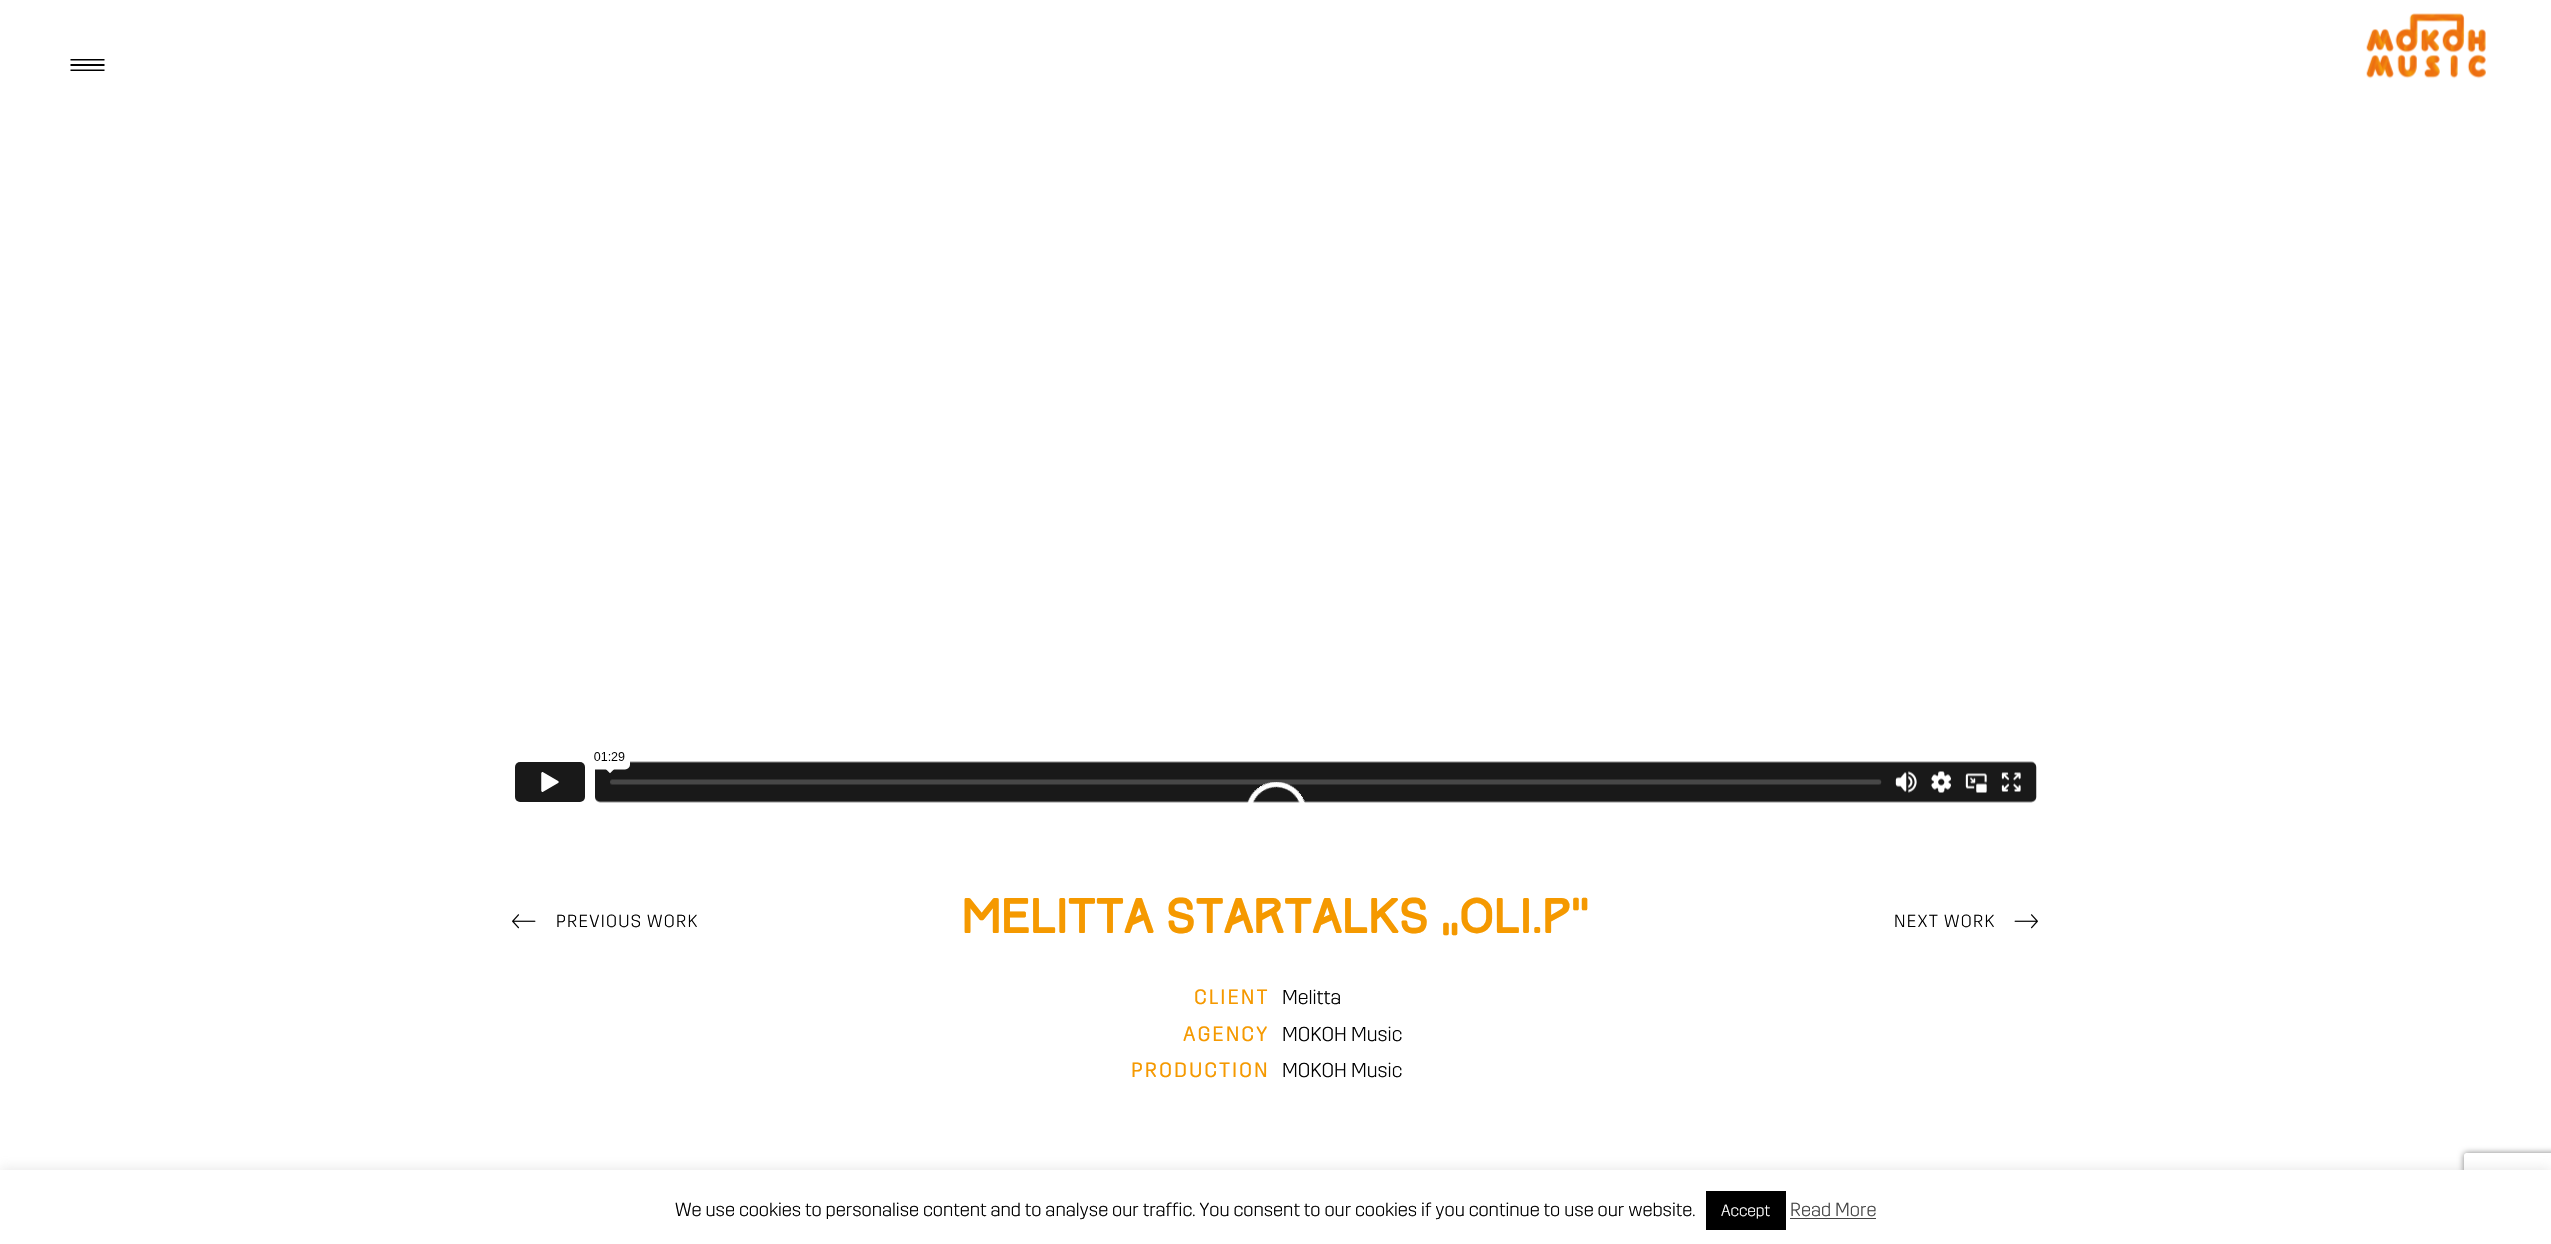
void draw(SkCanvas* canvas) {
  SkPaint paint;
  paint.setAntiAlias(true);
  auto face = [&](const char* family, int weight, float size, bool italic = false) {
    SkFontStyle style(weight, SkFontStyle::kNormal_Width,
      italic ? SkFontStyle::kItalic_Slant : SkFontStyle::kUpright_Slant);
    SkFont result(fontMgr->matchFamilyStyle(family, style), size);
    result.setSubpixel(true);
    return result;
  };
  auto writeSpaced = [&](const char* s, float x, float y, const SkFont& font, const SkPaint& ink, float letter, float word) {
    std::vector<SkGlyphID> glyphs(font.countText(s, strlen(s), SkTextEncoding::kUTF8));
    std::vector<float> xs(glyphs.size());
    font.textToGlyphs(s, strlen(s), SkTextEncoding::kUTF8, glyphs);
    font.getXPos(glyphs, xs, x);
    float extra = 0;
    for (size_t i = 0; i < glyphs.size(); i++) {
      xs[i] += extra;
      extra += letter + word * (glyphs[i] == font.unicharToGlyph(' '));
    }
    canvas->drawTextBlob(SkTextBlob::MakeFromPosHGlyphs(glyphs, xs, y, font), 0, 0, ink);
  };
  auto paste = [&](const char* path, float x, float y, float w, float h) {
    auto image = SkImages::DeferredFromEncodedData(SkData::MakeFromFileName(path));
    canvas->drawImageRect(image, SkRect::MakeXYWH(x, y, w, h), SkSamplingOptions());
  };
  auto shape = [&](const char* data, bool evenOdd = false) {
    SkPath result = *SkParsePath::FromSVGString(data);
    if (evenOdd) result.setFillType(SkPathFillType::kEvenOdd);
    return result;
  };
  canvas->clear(0xffffffff);
  paint.setColor(0xff000000);
  canvas->drawPath(shape("M70.5 69.5V71H104.5V69.5ZM70.5 64V66H104.5V64ZM70.5 59V60.5H104.5V59Z"), paint);
  paste("img/1.png", 2366, 13, 120, 66);
  paste("img/2.png", 515, 752, 1522, 51);
  paste("img/3.png", 512, 914, 24, 15);
  paste("img/4.png", 2014, 914, 24, 15);
  paint.setColor(0x4dacabab);
  paint.setMaskFilter(SkMaskFilter::MakeBlur(kNormal_SkBlurStyle, 6));
  canvas->drawRect(SkRect::MakeXYWH(0, 1169, 2551, 75), paint);
  paint.setMaskFilter(nullptr);
  canvas->save();
  canvas->clipPath(shape("M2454 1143H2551V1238H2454ZM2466.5 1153H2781.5C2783 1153 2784 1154 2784 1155.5V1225.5C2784 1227 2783 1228 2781.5 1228H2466.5C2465 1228 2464 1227 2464 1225.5V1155.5C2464 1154 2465 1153 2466.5 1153Z", true), true);
  paint.setColor(0xff808080);
  paint.setMaskFilter(SkMaskFilter::MakeBlur(kNormal_SkBlurStyle, 3));
  canvas->drawRoundRect(SkRect::MakeXYWH(2464, 1153, 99, 75), 2.5f, 2.5f, paint);
  paint.setMaskFilter(nullptr);
  canvas->restore();
  {
    const struct { float x, y, w, h; SkColor color; } items[] = {
      {0, 1170, 2551, 74, 0xffffffff},
      {1706, 1191, 80, 39, 0xff000000},
      {1790, 1218, 86, 1, 0xff444444},
    };
    for (auto [x, y, w, h, color] : items) {
      paint.setColor(color);
      canvas->drawRect(SkRect::MakeXYWH(x, y, w, h), paint);
    }
  }
  auto f0 = face("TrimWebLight", 400, 17.5f);
  paint.setColor(0xff000000);
  writeSpaced("PREVIOUS WORK", 556, 927, f0, paint, 1.25f, 0);
  auto f1 = face("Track", 400, 43.75f);
  paint.setColor(0xfff59900);
  canvas->drawString("Melitta Startalks „Oli.P“", 962, 933, f1, paint);
  paint.setColor(0xff000000);
  writeSpaced("NEXT WORK", 1894, 927, f0, paint, 1.25f, 0);
  auto f2 = face("TrimWebLight", 700, 20);
  paint.setColor(0xfff59900);
  writeSpaced("CLIENT", 1194, 1004, f2, paint, 2.5f, 0);
  auto f3 = face("TrimWebLight", 400, 20);
  paint.setColor(0xff000000);
  canvas->drawString("Melitta", 1282, 1004, f3, paint);
  paint.setColor(0xfff59900);
  writeSpaced("AGENCY", 1183, 1041, f2, paint, 2.5f, 0);
  paint.setColor(0xff000000);
  canvas->drawString("MOKOH Music", 1282, 1041, f3, paint);
  paint.setColor(0xfff59900);
  writeSpaced("PRODUCTION", 1131, 1077, f2, paint, 2.5f, 0);
  paint.setColor(0xff000000);
  canvas->drawString("MOKOH Music", 1282, 1077, f3, paint);
  auto f4 = face("TrimWebLight", 400, 18.75f);
  canvas->drawString("We use cookies to personalise content and to analyse our traffic. You consent to our cookies if you continue to use our website.", 675, 1216, f4, paint);
  auto f5 = face("TrimWebLight", 400, 16);
  paint.setColor(0xffffffff);
  canvas->drawString("Accept", 1721, 1216, f5, paint);
  paint.setColor(0xff444444);
  canvas->drawString("Read More", 1790, 1216, f4, paint);
}
